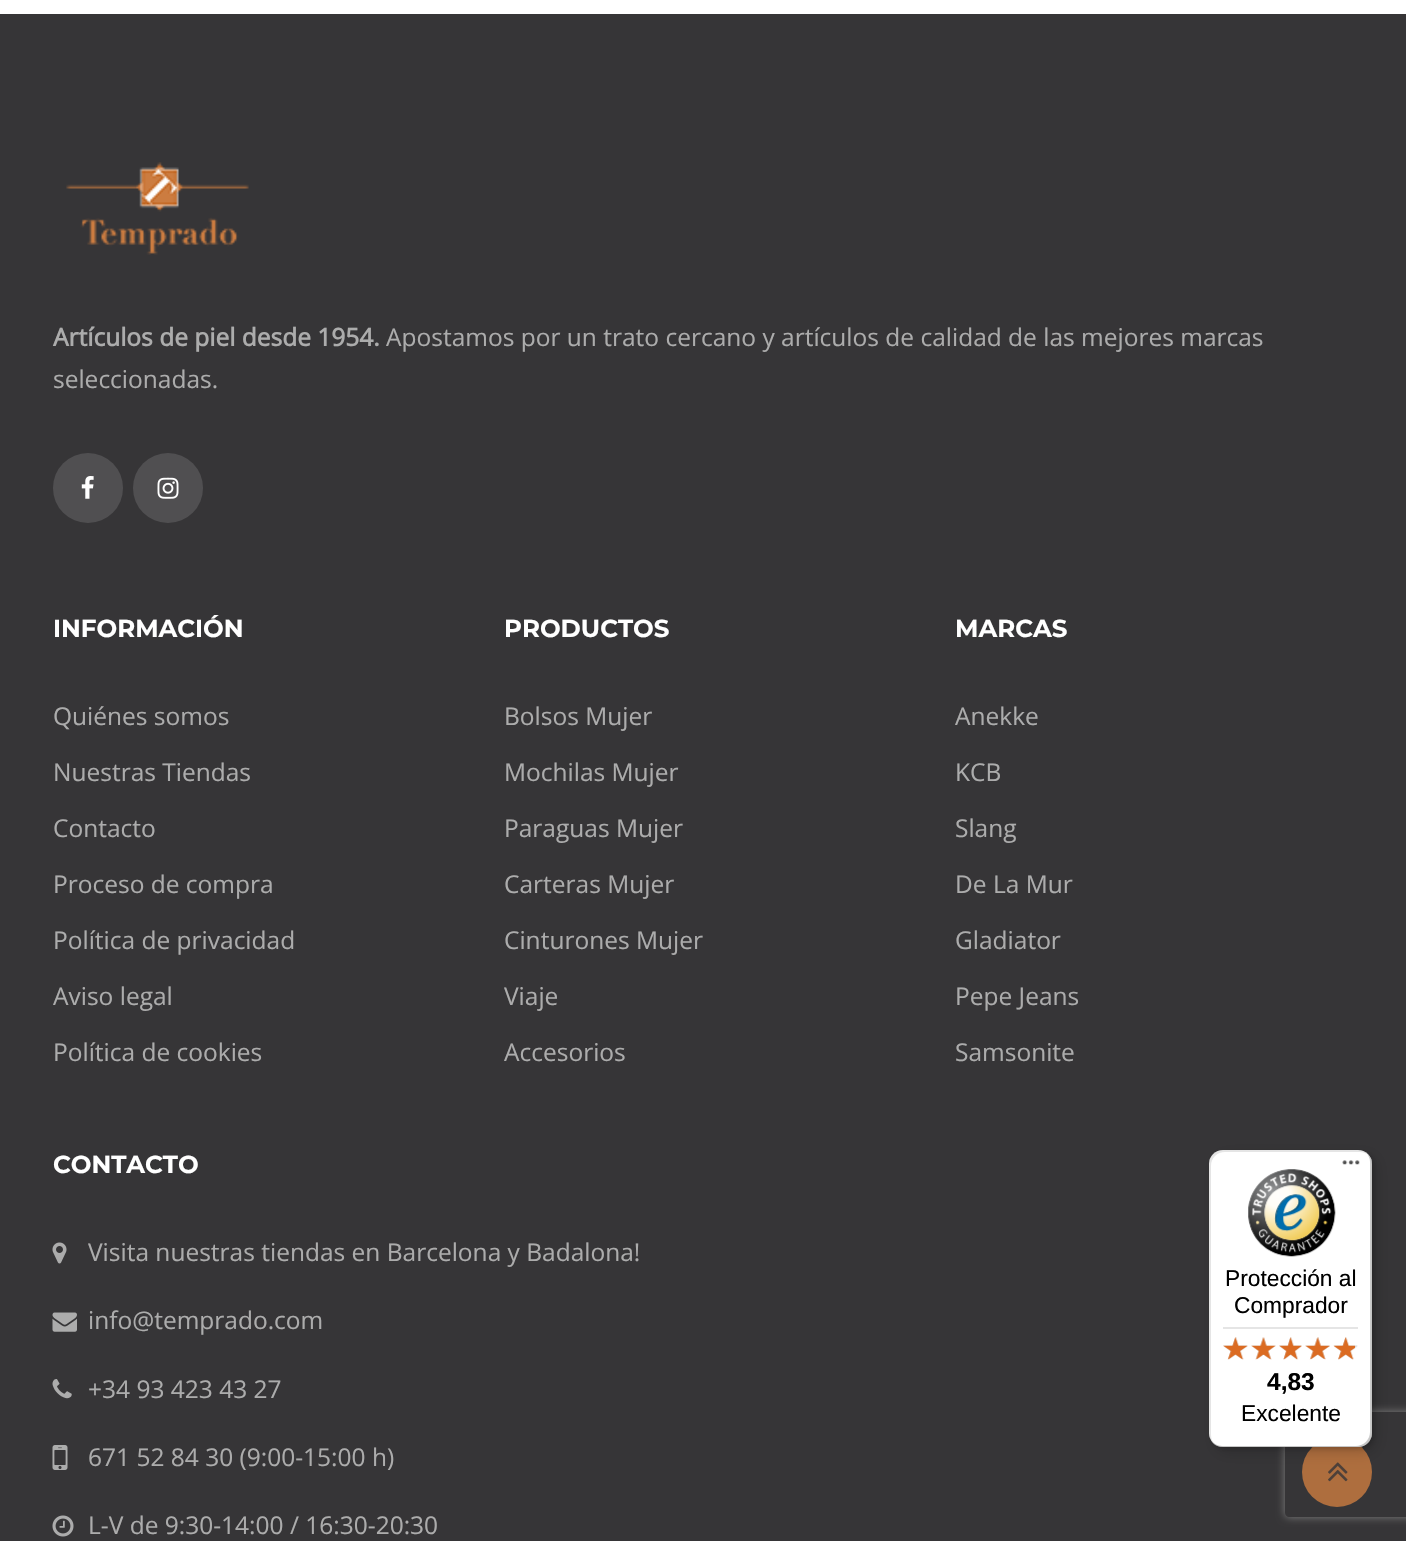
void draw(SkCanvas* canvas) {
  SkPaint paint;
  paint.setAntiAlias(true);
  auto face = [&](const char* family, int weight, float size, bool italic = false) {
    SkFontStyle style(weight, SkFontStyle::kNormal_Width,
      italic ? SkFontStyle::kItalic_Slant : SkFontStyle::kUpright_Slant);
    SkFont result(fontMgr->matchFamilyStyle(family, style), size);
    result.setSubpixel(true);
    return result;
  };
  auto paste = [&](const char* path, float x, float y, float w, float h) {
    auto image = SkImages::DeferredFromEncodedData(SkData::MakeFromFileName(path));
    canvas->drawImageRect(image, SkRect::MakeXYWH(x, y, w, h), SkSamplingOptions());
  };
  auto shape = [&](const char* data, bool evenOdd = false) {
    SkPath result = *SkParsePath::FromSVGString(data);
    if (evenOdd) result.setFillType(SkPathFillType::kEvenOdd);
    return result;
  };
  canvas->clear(0xffffffff);
  paint.setColor(0xff363537);
  canvas->drawRect(SkRect::MakeXYWH(0, 14, 1406, 1527), paint);
  paste("img/1.png", 66, 162, 183, 93);
  paint.setColor(0xff504f51);
  canvas->drawCircle(88, 488, 35, paint);
  paste("img/2.png", 81, 476, 13, 23);
  canvas->drawCircle(168, 488, 35, paint);
  paste("img/3.png", 157, 477, 22, 22);
  paste("img/4.png", 52, 1242, 15, 22);
  paste("img/5.png", 52, 1312, 25, 20);
  paste("img/6.png", 52, 1379, 20, 20);
  paste("img/7.png", 52, 1445, 16, 25);
  paste("img/8.png", 52, 1515, 22, 22);
  canvas->save();
  canvas->clipPath(shape("M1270 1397H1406V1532H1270ZM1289 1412H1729C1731 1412 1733 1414 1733 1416V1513C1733 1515 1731 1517 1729 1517H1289C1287 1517 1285 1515 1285 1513V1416C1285 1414 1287 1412 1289 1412Z", true), true);
  paint.setColor(0xff808080);
  paint.setMaskFilter(SkMaskFilter::MakeBlur(kNormal_SkBlurStyle, 4.5f));
  canvas->drawRoundRect(SkRect::MakeXYWH(1285, 1412, 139, 105), 4, 4, paint);
  paint.setMaskFilter(nullptr);
  canvas->restore();
  paint.setColor(0xffae6e3e);
  canvas->drawCircle(1337, 1472, 35, paint);
  paste("img/21.png", 1328, 1462, 20, 20);
  paint.setColor(0x26000000);
  paint.setMaskFilter(SkMaskFilter::MakeBlur(kNormal_SkBlurStyle, 7));
  canvas->drawRoundRect(SkRect::MakeXYWH(1215, 1155, 162, 298), 14, 14, paint);
  paint.setMaskFilter(nullptr);
  paint.setMaskFilter(SkMaskFilter::MakeBlur(kNormal_SkBlurStyle, 2));
  canvas->drawRoundRect(SkRect::MakeXYWH(1211, 1152, 163, 297), 14, 14, paint);
  paint.setMaskFilter(nullptr);
  paint.setColor(0xffffffff);
  canvas->drawRoundRect(SkRect::MakeXYWH(1209, 1150, 163, 297), 14, 14, paint);
  paint.setColor(0x1a000000);
  canvas->drawPath(shape("M1225 1152H1360C1363 1152 1367 1153 1369 1156C1367 1152 1363 1150 1358 1150H1223C1215 1150 1209 1156 1209 1164V1433C1209 1437 1211 1441 1214 1443C1212 1441 1211 1438 1211 1435V1166C1211 1158 1217 1152 1225 1152Z"), paint);
  paint.setColor(0x33000000);
  canvas->drawPath(shape("M1212 1441C1214 1445 1218 1447 1223 1447H1358C1366 1447 1372 1441 1372 1433V1164C1372 1160 1370 1156 1367 1154C1369 1156 1370 1159 1370 1162V1432C1370 1439 1364 1446 1356 1446H1222C1218 1446 1214 1444 1212 1441Z"), paint);
  paint.setColor(0x33323232);
  canvas->drawPath(shape("M1214 1443C1216 1446 1219 1447 1223 1447H1358C1366 1447 1372 1441 1372 1433V1164C1372 1160 1371 1157 1368 1155C1370 1157 1371 1160 1371 1163V1432C1371 1440 1365 1446 1357 1446H1222C1219 1446 1216 1445 1214 1443Z"), paint);
  paint.setColor(0x4dffffff);
  canvas->drawPath(shape("M1212 1442C1214 1445 1218 1447 1223 1447H1358C1366 1447 1372 1441 1372 1433V1164C1372 1160 1371 1157 1368 1155C1370 1157 1371 1160 1371 1163V1432C1371 1440 1365 1446 1357 1446H1222C1218 1446 1215 1444 1212 1442Z"), paint);
  paste("img/9.png", 1342, 1160, 18, 5);
  paste("img/10.png", 1248, 1169, 88, 88);
  paint.setColor(0xffe5e5e5);
  canvas->drawRect(SkRect::MakeXYWH(1223, 1327, 135, 2), paint);
  paste("img/11.png", 1223, 1337, 25, 23);
  paste("img/12.png", 1251, 1337, 25, 23);
  paste("img/13.png", 1279, 1337, 23, 23);
  paste("img/14.png", 1305, 1337, 25, 22);
  paste("img/15.png", 1334, 1337, 24, 23);
  paste("img/16.png", 1223, 1337, 25, 23);
  paste("img/17.png", 1251, 1337, 25, 23);
  paste("img/18.png", 1279, 1337, 23, 23);
  paste("img/19.png", 1305, 1337, 25, 23);
  paste("img/20.png", 1333, 1337, 22, 23);
  auto f0 = face("Open Sans", 700, 24.5f);
  paint.setColor(0xffacacac);
  canvas->drawString("Artículos de piel desde 1954.", 53, 346, f0, paint);
  auto f1 = face("Open Sans", 400, 24.5f);
  canvas->drawString("Apostamos por un trato cercano y artículos de calidad de las mejores marcas", 386, 346, f1, paint);
  canvas->drawString("seleccionadas.", 53, 388, f1, paint);
  auto f2 = face("Montserrat", 700, 24.5f);
  paint.setColor(0xffffffff);
  canvas->drawString("INFORMACIÓN", 53, 637, f2, paint);
  paint.setColor(0xffacacac);
  {
    const struct { const char* s; float x, y; } items[] = {
      {"Quiénes somos", 53, 725},
      {"Nuestras Tiendas", 53, 781},
      {"Contacto", 53, 837},
      {"Proceso de compra", 53, 893},
      {"Política de privacidad", 53, 949},
      {"Aviso legal", 53, 1005},
      {"Política de cookies", 53, 1061},
    };
    for (auto [s, x, y] : items) {
      canvas->drawString(s, x, y, f1, paint);
    }
  }
  paint.setColor(0xffffffff);
  canvas->drawString("PRODUCTOS", 504, 637, f2, paint);
  paint.setColor(0xffacacac);
  {
    const struct { const char* s; float x, y; } items[] = {
      {"Bolsos Mujer", 504, 725},
      {"Mochilas Mujer", 504, 781},
      {"Paraguas Mujer", 504, 837},
      {"Carteras Mujer", 504, 893},
      {"Cinturones Mujer", 504, 949},
      {"Viaje", 504, 1005},
      {"Accesorios", 504, 1061},
    };
    for (auto [s, x, y] : items) {
      canvas->drawString(s, x, y, f1, paint);
    }
  }
  paint.setColor(0xffffffff);
  canvas->drawString("MARCAS", 955, 637, f2, paint);
  paint.setColor(0xffacacac);
  {
    const struct { const char* s; float x, y; } items[] = {
      {"Anekke", 955, 725},
      {"KCB", 955, 781},
      {"Slang", 955, 837},
      {"De La Mur", 955, 893},
      {"Gladiator", 955, 949},
      {"Pepe Jeans", 955, 1005},
      {"Samsonite", 955, 1061},
    };
    for (auto [s, x, y] : items) {
      canvas->drawString(s, x, y, f1, paint);
    }
  }
  paint.setColor(0xffffffff);
  canvas->drawString("CONTACTO", 53, 1173, f2, paint);
  paint.setColor(0xffacacac);
  {
    const struct { const char* s; float x, y; } items[] = {
      {"Visita nuestras tiendas en Barcelona y Badalona!", 88, 1261},
      {"info@temprado.com", 88, 1329},
      {"+34 93 423 43 27", 88, 1398},
      {"671 52 84 30 (9:00-15:00 h)", 88, 1466},
      {"L-V de 9:30-14:00 / 16:30-20:30", 88, 1534},
    };
    for (auto [s, x, y] : items) {
      canvas->drawString(s, x, y, f1, paint);
    }
  }
  auto f3 = face("Liberation Sans", 400, 22.75f);
  paint.setColor(0xff000000);
  canvas->drawString("Protección al", 1225, 1286, f3, paint);
  canvas->drawString("Comprador", 1234, 1313, f3, paint);
  auto f4 = face("Liberation Sans", 700, 24.5f);
  canvas->drawString("4,83", 1267, 1390, f4, paint);
  canvas->drawString("Excelente", 1241, 1421, f3, paint);
}
